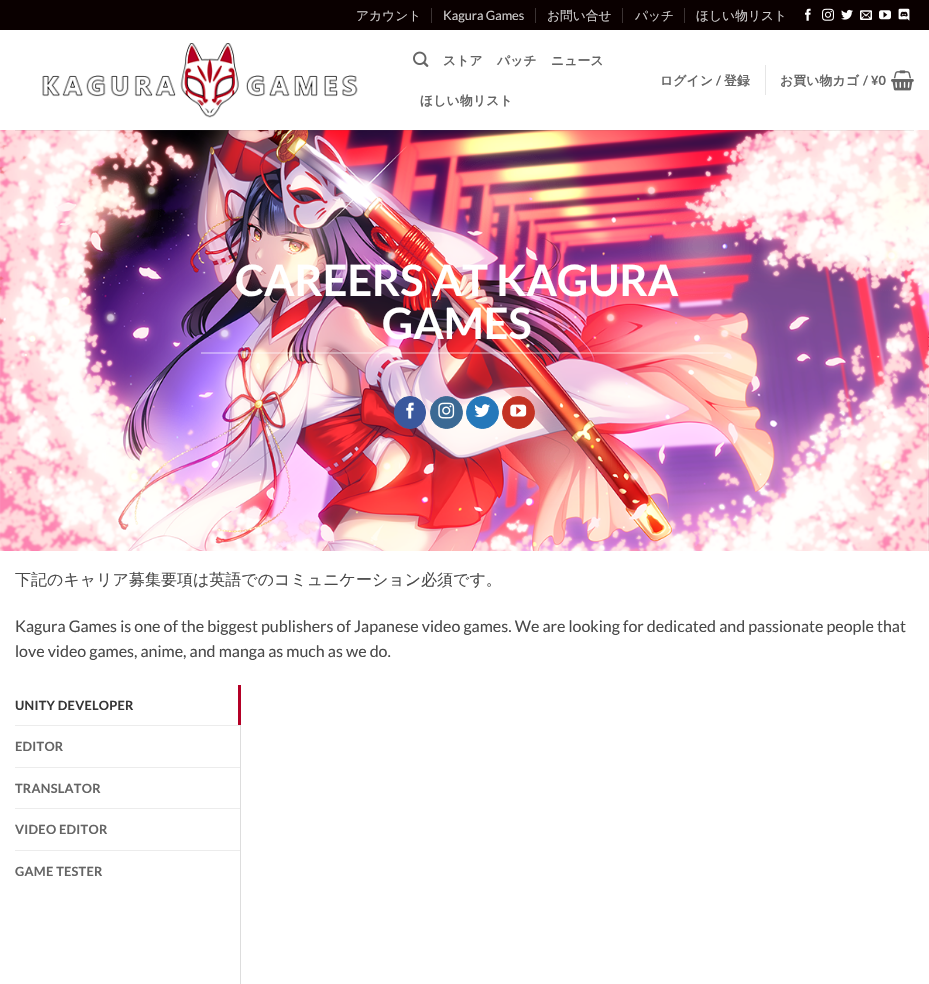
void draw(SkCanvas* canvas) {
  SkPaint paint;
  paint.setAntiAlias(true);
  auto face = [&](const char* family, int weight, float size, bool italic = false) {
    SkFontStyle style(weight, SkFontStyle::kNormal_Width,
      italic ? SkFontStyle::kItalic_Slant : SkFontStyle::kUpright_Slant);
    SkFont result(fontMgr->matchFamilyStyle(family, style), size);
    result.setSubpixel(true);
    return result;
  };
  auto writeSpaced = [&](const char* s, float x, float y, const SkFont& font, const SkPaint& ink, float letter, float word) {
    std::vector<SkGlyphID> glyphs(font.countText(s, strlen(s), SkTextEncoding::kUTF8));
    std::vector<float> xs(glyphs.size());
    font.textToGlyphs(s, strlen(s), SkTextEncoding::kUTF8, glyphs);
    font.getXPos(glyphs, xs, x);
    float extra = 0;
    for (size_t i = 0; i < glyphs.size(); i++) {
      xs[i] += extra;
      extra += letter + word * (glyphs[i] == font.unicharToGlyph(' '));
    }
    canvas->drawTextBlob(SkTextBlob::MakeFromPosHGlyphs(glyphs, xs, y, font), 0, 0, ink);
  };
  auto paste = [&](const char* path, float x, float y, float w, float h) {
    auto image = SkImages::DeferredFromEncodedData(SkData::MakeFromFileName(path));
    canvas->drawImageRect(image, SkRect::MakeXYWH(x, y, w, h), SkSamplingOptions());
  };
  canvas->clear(0xffffffff);
  {
    const struct { float x, y, w, h; SkColor color; } items[] = {
      {0, 0, 929, 30, 0xff0a0000},
      {431, 8, 1, 15, 0xff3b3333},
      {535, 8, 1, 15, 0xff3b3333},
      {622, 8, 1, 15, 0xff3b3333},
      {684, 8, 1, 15, 0xff3b3333},
    };
    for (auto [x, y, w, h, color] : items) {
      paint.setColor(color);
      canvas->drawRect(SkRect::MakeXYWH(x, y, w, h), paint);
    }
  }
  paste("img/1.png", 805, 8, 6, 13);
  paste("img/2.png", 822, 8, 12, 13);
  paste("img/3.png", 841, 9, 12, 11);
  paste("img/4.png", 860, 10, 12, 10);
  paste("img/5.png", 879, 10, 12, 10);
  paste("img/6.png", 898, 8, 12, 13);
  paste("img/7.png", 42, 43, 316, 75);
  paste("img/8.png", 413, 51, 16, 16);
  paint.setColor(0xffe6e6e6);
  canvas->drawRect(SkRect::MakeXYWH(765, 65, 1, 30), paint);
  paste("img/9.png", 891, 70, 23, 21);
  paste("img/10.png", 0, 130, 929, 421);
  paint.setColor(0x1a4a4a4a);
  canvas->drawRect(SkRect::MakeXYWH(15, 130, 899, 1), paint);
  paste("img/11.png", 63, 154, 866, 350);
  paint.setColor(0x33ffffff);
  canvas->drawRect(SkRect::MakeXYWH(201, 352, 527, 2), paint);
  canvas->drawRect(SkRect::MakeXYWH(201, 352, 512, 2), paint);
  paint.setColor(0xff3a589d);
  canvas->drawRoundRect(SkRect::MakeXYWH(394.5f, 396.5f, 31, 32), 15.5f, 15.5f, paint);
  paint.setStroke(true);
  paint.setStrokeWidth(1);
  canvas->drawRoundRect(SkRect::MakeXYWH(394.5f, 396.5f, 31, 32), 15.5f, 15.5f, paint);
  paste("img/12.png", 406, 402, 8, 17);
  paint.setStroke(false);
  paint.setColor(0xff3b6994);
  canvas->drawCircle(446.5f, 412.5f, 16, paint);
  paint.setStroke(true);
  canvas->drawCircle(446.5f, 412.5f, 16, paint);
  paste("img/13.png", 438, 402, 17, 17);
  paint.setStroke(false);
  paint.setColor(0xff2478ba);
  canvas->drawCircle(482.5f, 412.5f, 16, paint);
  paint.setStroke(true);
  canvas->drawCircle(482.5f, 412.5f, 16, paint);
  paste("img/14.png", 474, 404, 16, 13);
  paint.setStroke(false);
  paint.setColor(0xffc33223);
  canvas->drawCircle(518.5f, 412.5f, 16, paint);
  paint.setStroke(true);
  canvas->drawCircle(518.5f, 412.5f, 16, paint);
  paste("img/15.png", 510, 404, 17, 13);
  paint.setStroke(false);
  {
    const struct { float x, y, w, h; SkColor color; } items[] = {
      {238, 685, 3, 40, 0xffb40026},
      {15, 725, 225, 1, 0xffececec},
      {15, 767, 225, 1, 0xffececec},
      {15, 808, 225, 1, 0xffececec},
      {15, 850, 225, 1, 0xffececec},
      {240, 725, 1, 259, 0xffdddddd},
    };
    for (auto [x, y, w, h, color] : items) {
      paint.setColor(color);
      canvas->drawRect(SkRect::MakeXYWH(x, y, w, h), paint);
    }
  }
  auto f0 = face("WenQuanYi Zen Hei", 500, 12.75f);
  paint.setColor(0xffcecccc);
  canvas->drawString("アカウント", 356, 20, f0, paint);
  auto f1 = face("Lato", 400, 12.75f);
  canvas->drawString("Kagura Games", 443, 20, f1, paint);
  {
    const struct { const char* s; float x, y; } items[] = {
      {"お問い合せ", 547, 20},
      {"パッチ", 635, 20},
      {"ほしい物リスト", 696, 20},
    };
    for (auto [s, x, y] : items) {
      canvas->drawString(s, x, y, f0, paint);
    }
  }
  auto f2 = face("WenQuanYi Zen Hei", 700, 12.75f);
  paint.setColor(0xff656565);
  {
    const struct { const char* s; float x, y; } items[] = {
      {"ストア", 443, 65},
      {"パッチ", 497, 65},
      {"ニュース", 551, 65},
      {"ほしい物リスト", 420, 105},
      {"ログイン", 660, 85},
    };
    for (auto [s, x, y] : items) {
      writeSpaced(s, x, y, f2, paint, 0.25f, 0);
    }
  }
  auto f3 = face("Lato", 700, 12.75f);
  writeSpaced("/", 716, 85, f3, paint, 0.25f, 0);
  writeSpaced("登録", 724, 85, f2, paint, 0.25f, 0);
  writeSpaced("お買い物カゴ", 780, 85, f2, paint, 0.25f, 0);
  writeSpaced("/ ¥0", 863, 85, f3, paint, 0.25f, 0);
  auto f4 = face("Lato", 700, 43.1f);
  paint.setColor(0xffffffff);
  canvas->drawString("CAREERS AT KAGURA", 235, 296, f4, paint);
  canvas->drawString("GAMES", 382, 339, f4, paint);
  auto f5 = face("WenQuanYi Zen Hei", 500, 16);
  paint.setColor(0xff4a4a4a);
  canvas->drawString("下記のキャリア募集要項は英語でのコミュニケーション必須です。", 15, 585, f5, paint);
  auto f6 = face("Lato", 400, 16);
  canvas->drawString("Kagura Games is one of the biggest publishers of Japanese video games. We are looking for dedicated and passionate people that", 15, 632, f6, paint);
  canvas->drawString("love video games, anime, and manga as much as we do.", 15, 657, f6, paint);
  paint.setColor(0xff363636);
  writeSpaced("UNITY DEVELOPER", 15, 710, f3, paint, 0.25f, 0);
  paint.setColor(0xff656565);
  {
    const struct { const char* s; float x, y; } items[] = {
      {"EDITOR", 15, 751},
      {"TRANSLATOR", 15, 793},
      {"VIDEO EDITOR", 15, 834},
      {"GAME TESTER", 15, 876},
    };
    for (auto [s, x, y] : items) {
      writeSpaced(s, x, y, f3, paint, 0.25f, 0);
    }
  }
}
